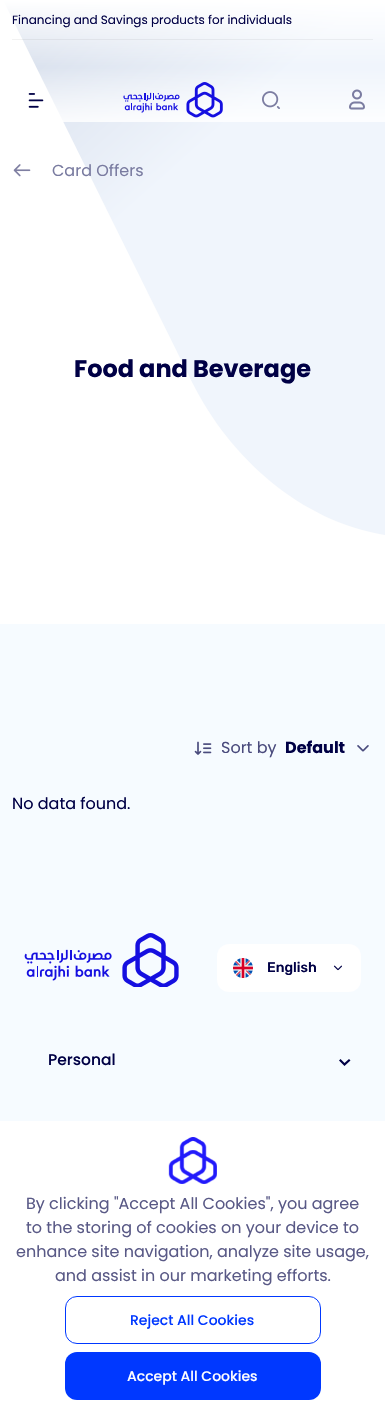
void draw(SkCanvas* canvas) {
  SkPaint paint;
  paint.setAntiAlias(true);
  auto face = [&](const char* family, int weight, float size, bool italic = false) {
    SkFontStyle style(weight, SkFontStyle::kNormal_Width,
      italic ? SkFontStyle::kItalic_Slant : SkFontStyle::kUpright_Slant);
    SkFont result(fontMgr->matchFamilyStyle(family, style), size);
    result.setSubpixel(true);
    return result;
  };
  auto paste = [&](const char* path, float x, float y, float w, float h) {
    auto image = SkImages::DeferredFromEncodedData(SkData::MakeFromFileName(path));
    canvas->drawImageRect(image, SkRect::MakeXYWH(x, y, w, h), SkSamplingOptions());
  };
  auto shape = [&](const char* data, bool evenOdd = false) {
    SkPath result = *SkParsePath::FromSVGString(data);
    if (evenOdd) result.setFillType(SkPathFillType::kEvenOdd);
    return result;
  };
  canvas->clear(0xfff6fbff);
  paint.setColor(0xffffffff);
  canvas->drawRect(SkRect::MakeXYWH(0, 0, 385, 624), paint);
  {
    const SkColor colors[] = {0xffd3dbe9, 0xfff0f5fc};
    const float stops[] = {0, 0.35f};
    const SkPoint ends[] = {{-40, 35}, {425, 557}};
    paint.setShader(SkGradientShader::MakeLinear(ends, colors, stops, 2, SkTileMode::kClamp));
    paint.setAlpha(255);
  }
  canvas->drawPath(shape("M192 382C230 458 300 521 385 535V0H3Z"), paint);
  {
    const SkColor colors[] = {0xffffffff, 0x00ffffff, 0xffffffff};
    const float stops[] = {0, 0.5f, 1};
    const SkPoint ends[] = {{193, 0}, {193, 134}};
    paint.setShader(SkGradientShader::MakeLinear(ends, colors, stops, 3, SkTileMode::kClamp));
    paint.setAlpha(255);
  }
  canvas->drawRect(SkRect::MakeXYWH(3, 0, 382, 122), paint);
  paint.setShader(nullptr);
  paint.setColor(0x0d000000);
  canvas->drawRect(SkRect::MakeXYWH(12, 39, 361, 1), paint);
  paste("img/1.png", 28, 93, 16, 15);
  paste("img/2.png", 123, 82, 100, 36);
  paste("img/3.png", 262, 91, 18, 18);
  paste("img/4.png", 349, 89, 16, 21);
  paste("img/5.png", 13, 164, 18, 13);
  paste("img/6.png", 194, 741, 18, 14);
  paste("img/7.png", 357, 745, 12, 7);
  paste("img/8.png", 24, 933, 155, 54);
  paint.setColor(0xffffffff);
  canvas->drawRoundRect(SkRect::MakeXYWH(217, 944, 144, 48), 12, 12, paint);
  paste("img/9.png", 233, 958, 20, 20);
  paste("img/10.png", 333, 965, 9, 6);
  paint.setColor(0xff000045);
  canvas->drawPath(shape("M340.5 1059L339 1060.5L344.5 1066L350.5 1060.5L349 1059L344.5 1063Z"), paint);
  paint.setColor(0xffffffff);
  canvas->drawRect(SkRect::MakeXYWH(0, 1121, 385, 295), paint);
  paste("img/11.png", 168, 1137, 49, 47);
  paint.setStroke(true);
  paint.setStrokeWidth(1);
  paint.setColor(0xff0038ff);
  canvas->drawRoundRect(SkRect::MakeXYWH(65.5f, 1296.5f, 255, 47), 11.5f, 11.5f, paint);
  paint.setStroke(false);
  canvas->drawRoundRect(SkRect::MakeXYWH(65, 1352, 256, 48), 12, 12, paint);
  auto f0 = face("Poppins", 400, 12);
  paint.setColor(0xff000045);
  canvas->drawString("Financing and Savings products for individuals", 12, 24, f0, paint);
  auto f1 = face("Poppins", 400, 16);
  paint.setColor(0xff797ba0);
  canvas->drawString("Card Offers", 52, 176, f1, paint);
  auto f2 = face("Poppins", 700, 24);
  paint.setColor(0xff000045);
  canvas->drawString("Food and Beverage", 74, 377, f2, paint);
  paint.setColor(0xff4a4b7d);
  canvas->drawString("Sort by", 221, 753, f1, paint);
  auto f3 = face("Poppins", 700, 16);
  paint.setColor(0xff000045);
  canvas->drawString("Default", 285, 753, f3, paint);
  canvas->drawString("No data found.", 12, 809, f1, paint);
  auto f4 = face("Rubik", 500, 14);
  canvas->drawString("English", 267, 972, f4, paint);
  auto f5 = face("Poppins", 500, 15.5f);
  canvas->drawString("Personal", 48, 1065, f5, paint);
  paint.setColor(0xff595986);
  {
    const struct { const char* s; float x, y; } items[] = {
      {"By clicking \"Accept All Cookies\", you agree", 26, 1209},
      {"to the storing of cookies on your device to", 26, 1233},
      {"enhance site navigation, analyze site usage,", 16, 1257},
      {"and assist in our marketing efforts.", 55, 1281},
    };
    for (auto [s, x, y] : items) {
      canvas->drawString(s, x, y, f1, paint);
    }
  }
  auto f6 = face("Poppins", 500, 14);
  paint.setColor(0xff0038ff);
  canvas->drawString("Reject All Cookies", 130, 1325, f6, paint);
  paint.setColor(0xffffffff);
  canvas->drawString("Accept All Cookies", 127, 1381, f6, paint);
}
